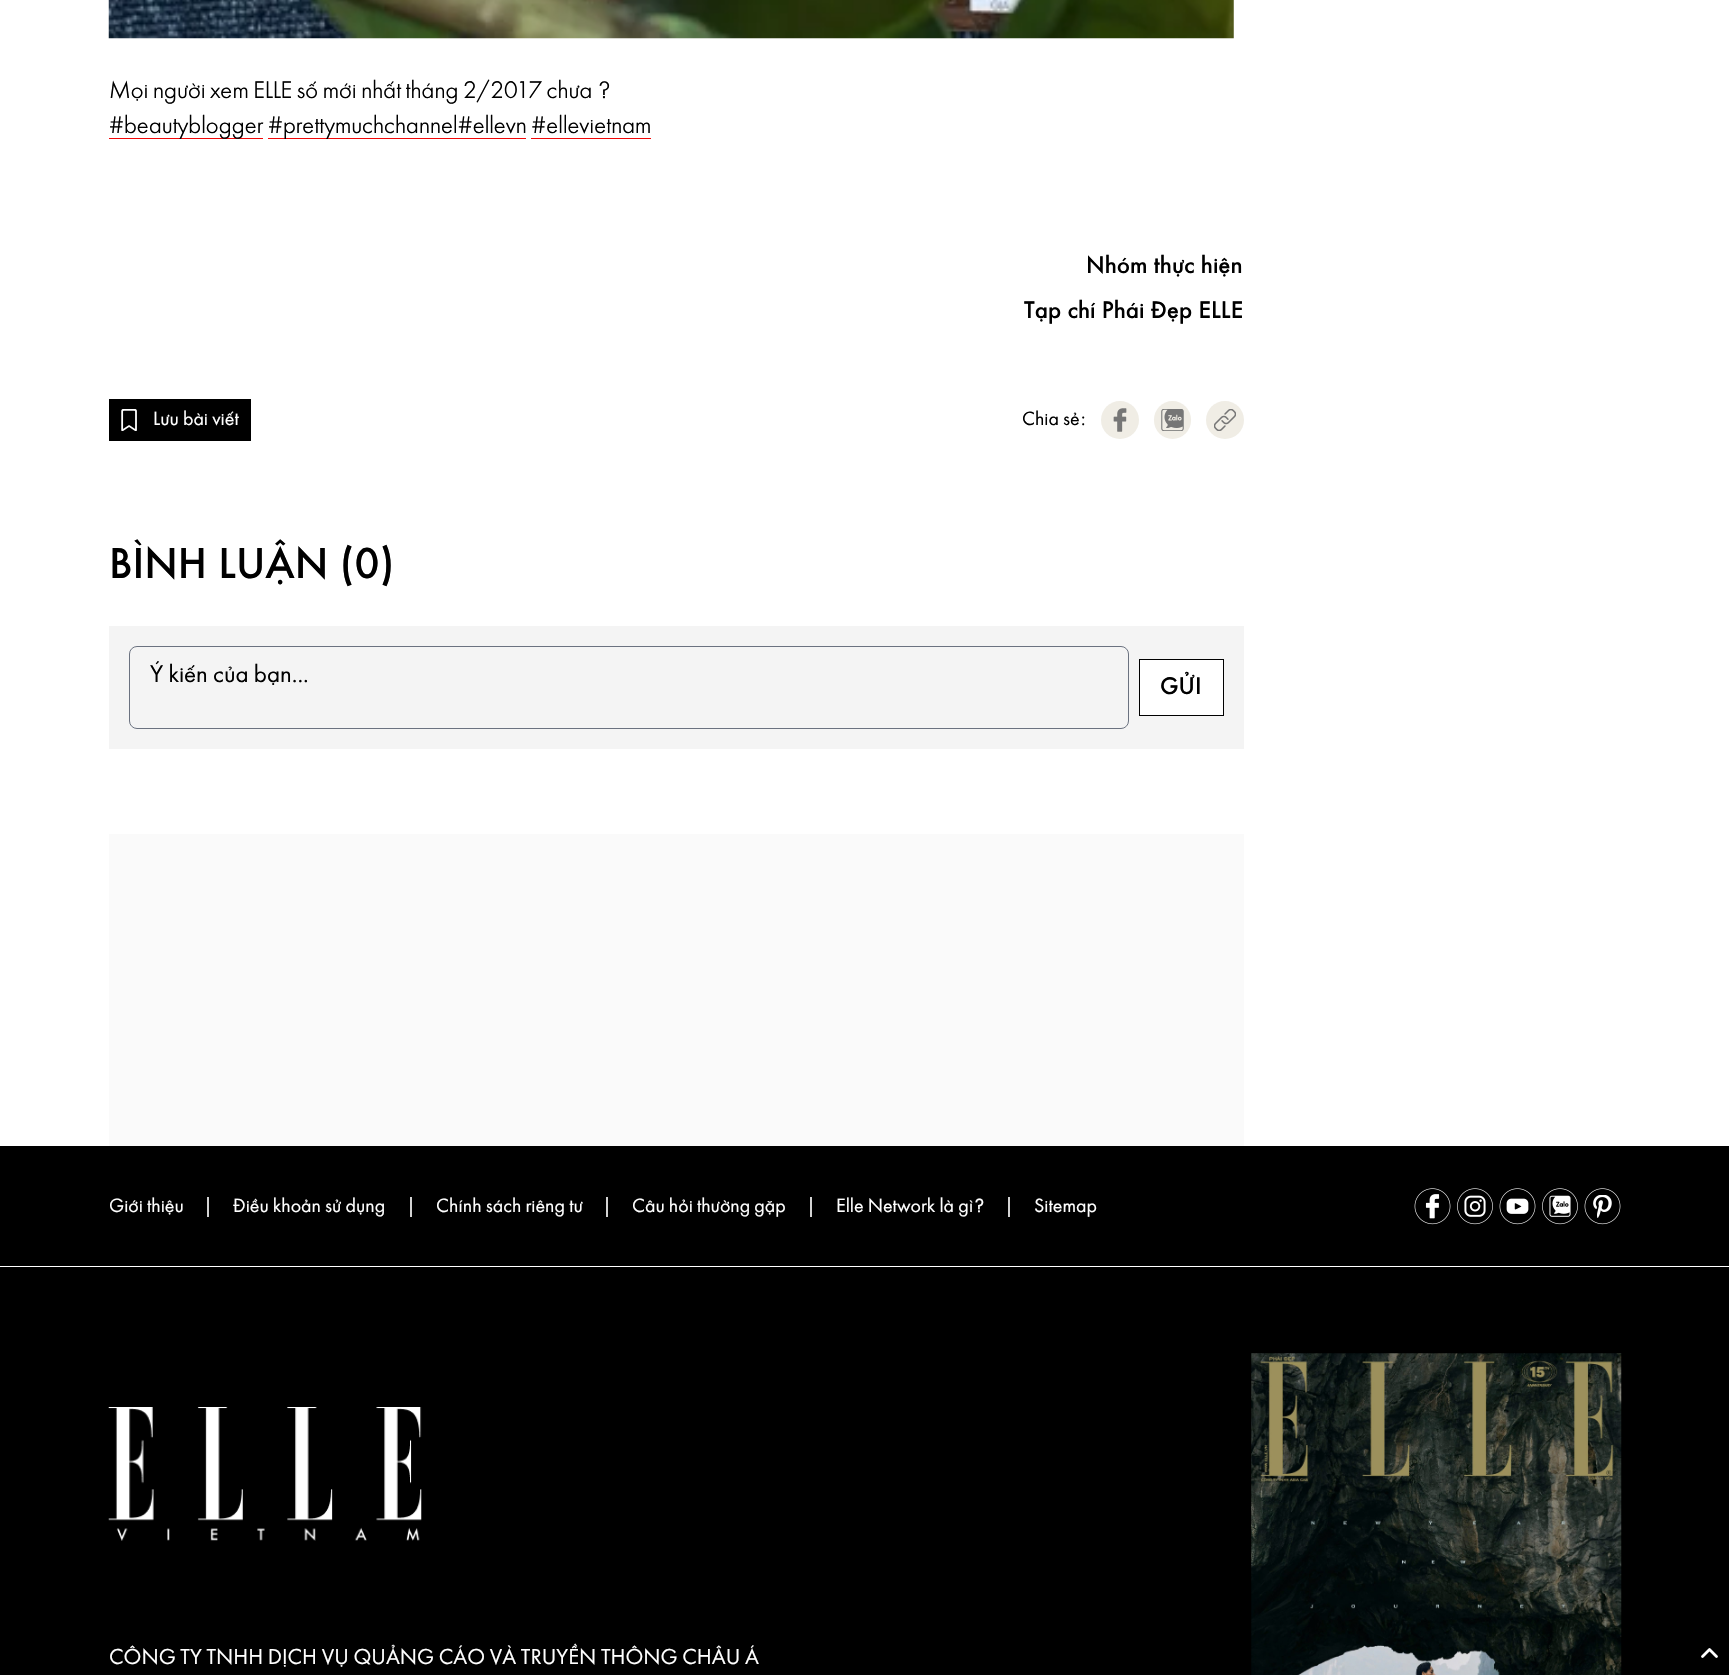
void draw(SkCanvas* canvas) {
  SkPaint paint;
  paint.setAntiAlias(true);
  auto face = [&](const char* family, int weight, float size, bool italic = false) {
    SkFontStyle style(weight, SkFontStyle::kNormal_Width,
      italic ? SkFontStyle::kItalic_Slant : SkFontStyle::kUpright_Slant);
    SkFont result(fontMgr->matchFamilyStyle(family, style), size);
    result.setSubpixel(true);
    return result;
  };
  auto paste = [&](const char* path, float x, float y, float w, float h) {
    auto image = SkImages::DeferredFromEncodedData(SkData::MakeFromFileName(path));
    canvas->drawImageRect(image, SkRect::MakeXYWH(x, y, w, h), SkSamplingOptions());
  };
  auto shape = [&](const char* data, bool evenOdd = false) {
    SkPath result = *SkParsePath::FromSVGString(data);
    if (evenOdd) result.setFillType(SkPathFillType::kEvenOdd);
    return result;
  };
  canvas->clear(0xffffffff);
  paste("img/1.png", 108, 0, 1126, 39);
  {
    const struct { float x, y, w, h; SkColor color; } items[] = {
      {109, 138, 154, 1, 0xfff20707},
      {268, 138, 258, 1, 0xfff20707},
      {109, 399, 142, 42, 0xff000000},
    };
    for (auto [x, y, w, h, color] : items) {
      paint.setColor(color);
      canvas->drawRect(SkRect::MakeXYWH(x, y, w, h), paint);
    }
  }
  paste("img/2.png", 121, 409, 16, 22);
  paint.setColor(0xfff0ede5);
  canvas->drawCircle(1120, 420, 19, paint);
  paste("img/3.png", 1113, 408, 14, 24);
  canvas->drawRoundRect(SkRect::MakeXYWH(1154, 401, 37, 38), 18.5f, 18.5f, paint);
  paste("img/4.png", 1161, 409, 23, 22);
  canvas->drawCircle(1225, 420, 19, paint);
  paste("img/5.png", 1214, 409, 22, 22);
  paint.setColor(0xfff4f4f4);
  canvas->drawRect(SkRect::MakeXYWH(109, 626, 1135, 123), paint);
  paint.setStroke(true);
  paint.setStrokeWidth(1);
  paint.setColor(0xff6b7280);
  canvas->drawRoundRect(SkRect::MakeXYWH(129.5f, 646.5f, 999, 82), 7.5f, 7.5f, paint);
  paint.setStroke(false);
  paint.setColor(0xffffffff);
  canvas->drawRect(SkRect::MakeXYWH(1139.5f, 659.5f, 84, 56), paint);
  paint.setStroke(true);
  paint.setColor(0xff000000);
  canvas->drawRect(SkRect::MakeXYWH(1139.5f, 659.5f, 84, 56), paint);
  paint.setStroke(false);
  {
    const struct { float x, y, w, h; SkColor color; } items[] = {
      {109, 834, 1135, 312, 0xfffafafa},
      {0, 1146, 1729, 529, 0xff000000},
      {0, 1266, 1729, 1, 0xffffffff},
    };
    for (auto [x, y, w, h, color] : items) {
      paint.setColor(color);
      canvas->drawRect(SkRect::MakeXYWH(x, y, w, h), paint);
    }
  }
  paste("img/6.png", 1414, 1188, 37, 37);
  paste("img/7.png", 1457, 1188, 36, 37);
  paste("img/8.png", 1499, 1188, 37, 37);
  paste("img/9.png", 1542, 1188, 36, 37);
  paste("img/10.png", 1584, 1188, 37, 37);
  paste("img/11.png", 108, 1407, 314, 134);
  paste("img/12.png", 1251, 1353, 371, 322);
  paint.setStroke(true);
  paint.setStrokeWidth(2.8f);
  paint.setStrokeCap(SkPaint::kRound_Cap);
  paint.setStrokeJoin(SkPaint::kRound_Join);
  canvas->drawPath(shape("M1716.5 1656.5L1709.5 1649.5L1702.5 1656.5"), paint);
  auto f0 = face("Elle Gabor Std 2", 400, 25);
  paint.setStroke(false);
  paint.setColor(0xff000000);
  {
    const struct { const char* s; float x, y; } items[] = {
      {"Mọi người xem ELLE số mới nhất tháng 2/2017 chưa ?", 109, 98},
      {"#beautyblogger", 109, 133},
      {"#prettymuchchannel#ellevn #ellevietnam", 268, 133},
    };
    for (auto [s, x, y] : items) {
      canvas->drawString(s, x, y, f0, paint);
    }
  }
  paint.setColor(0xfff20707);
  canvas->drawRect(SkRect::MakeXYWH(531, 138, 120, 1), paint);
  auto f1 = face("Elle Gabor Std", 500, 25);
  paint.setColor(0xff000000);
  canvas->drawString("Nhóm thực hiện", 1086, 273, f1, paint);
  canvas->drawString("Tạp chí Phái Đẹp ELLE", 1024, 318, f1, paint);
  auto f2 = face("Elle Gabor Std", 400, 20);
  paint.setColor(0xffffffff);
  canvas->drawString("Lưu bài viết", 153, 425, f2, paint);
  paint.setColor(0xff000000);
  canvas->drawString("Chia sẻ:", 1022, 425, f2, paint);
  auto f3 = face("Elle Gabor Std", 500, 45);
  canvas->drawString("BÌNH LUẬN (0)", 109, 578, f3, paint);
  auto f4 = face("Elle Gabor Std", 400, 25);
  canvas->drawString("Ý kiến của bạn...", 150, 682, f4, paint);
  canvas->drawString("GỬI", 1160, 694, f1, paint);
  paint.setColor(0xffffffff);
  {
    const struct { const char* s; float x, y; } items[] = {
      {"Giới thiệu", 109, 1212},
      {"|", 203, 1212},
      {"Điều khoản sử dụng", 233, 1212},
      {"|", 406, 1212},
      {"Chính sách riêng tư", 436, 1212},
      {"|", 602, 1212},
      {"Câu hỏi thường gặp", 632, 1212},
      {"|", 806, 1212},
      {"Elle Network là gì?", 836, 1212},
      {"|", 1004, 1212},
      {"Sitemap", 1034, 1212},
    };
    for (auto [s, x, y] : items) {
      canvas->drawString(s, x, y, f2, paint);
    }
  }
  auto f5 = face("Elle Gabor Std", 400, 22.5f);
  canvas->drawString("CÔNG TY TNHH DỊCH VỤ QUẢNG CÁO VÀ TRUYỀN THÔNG CHÂU Á", 109, 1664, f5, paint);
}
